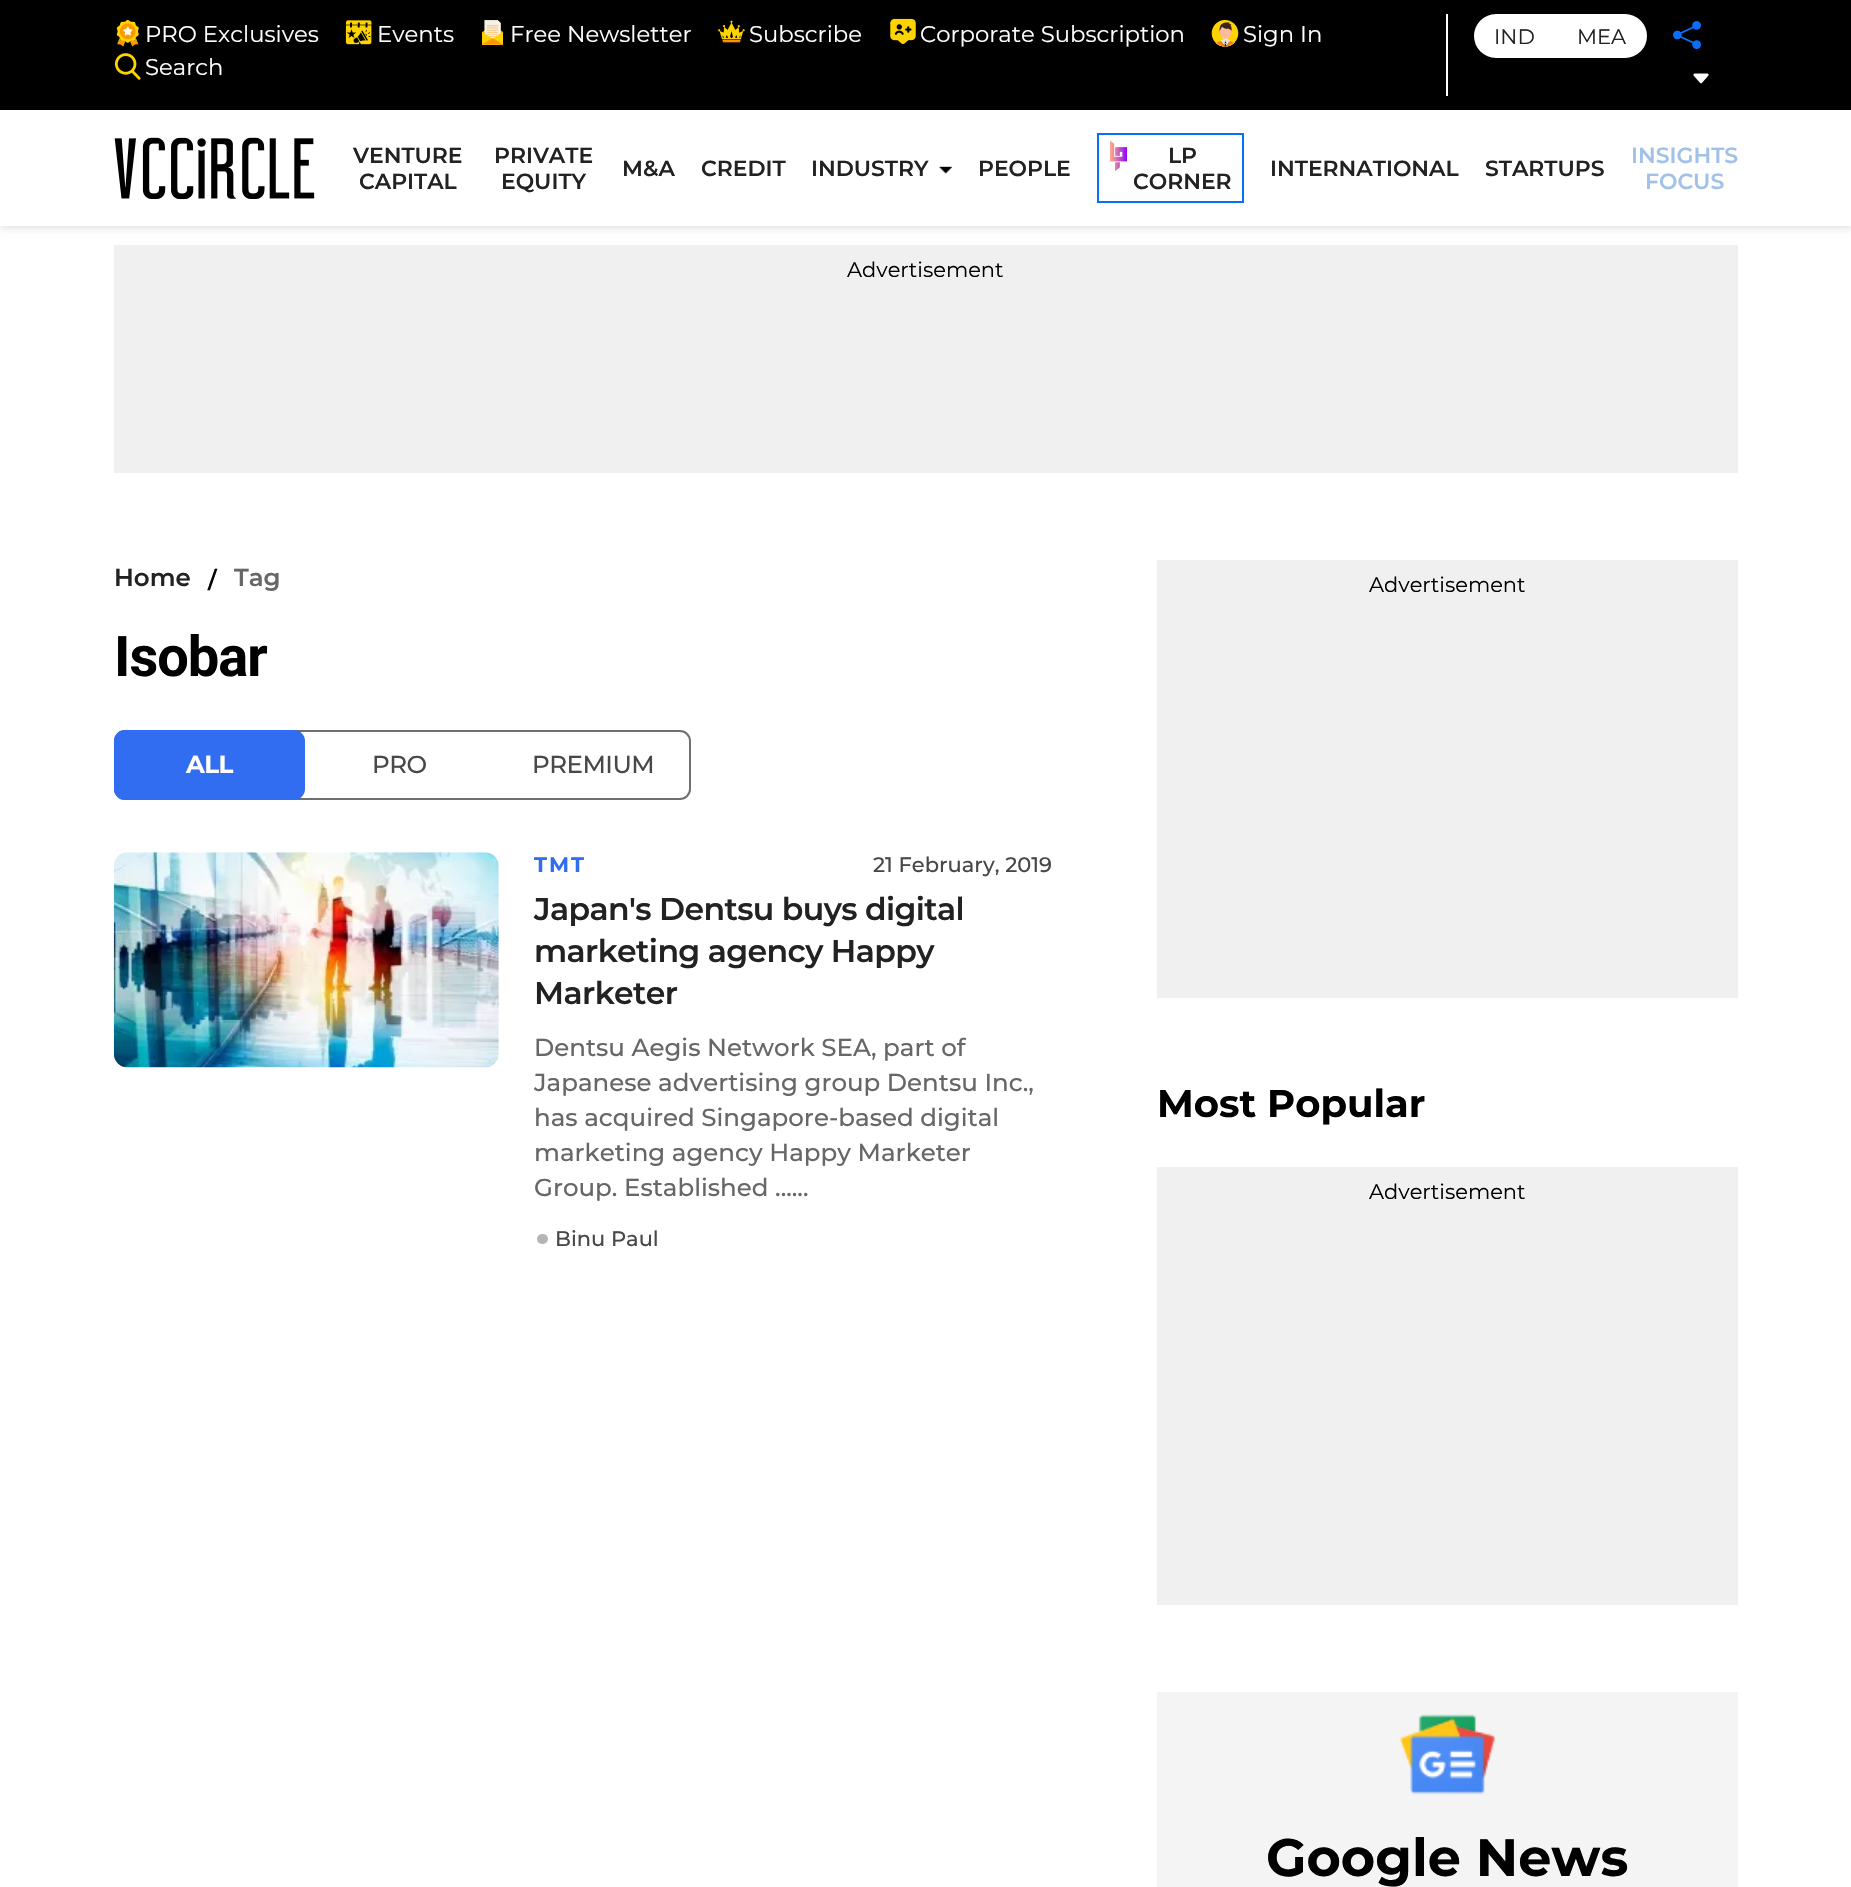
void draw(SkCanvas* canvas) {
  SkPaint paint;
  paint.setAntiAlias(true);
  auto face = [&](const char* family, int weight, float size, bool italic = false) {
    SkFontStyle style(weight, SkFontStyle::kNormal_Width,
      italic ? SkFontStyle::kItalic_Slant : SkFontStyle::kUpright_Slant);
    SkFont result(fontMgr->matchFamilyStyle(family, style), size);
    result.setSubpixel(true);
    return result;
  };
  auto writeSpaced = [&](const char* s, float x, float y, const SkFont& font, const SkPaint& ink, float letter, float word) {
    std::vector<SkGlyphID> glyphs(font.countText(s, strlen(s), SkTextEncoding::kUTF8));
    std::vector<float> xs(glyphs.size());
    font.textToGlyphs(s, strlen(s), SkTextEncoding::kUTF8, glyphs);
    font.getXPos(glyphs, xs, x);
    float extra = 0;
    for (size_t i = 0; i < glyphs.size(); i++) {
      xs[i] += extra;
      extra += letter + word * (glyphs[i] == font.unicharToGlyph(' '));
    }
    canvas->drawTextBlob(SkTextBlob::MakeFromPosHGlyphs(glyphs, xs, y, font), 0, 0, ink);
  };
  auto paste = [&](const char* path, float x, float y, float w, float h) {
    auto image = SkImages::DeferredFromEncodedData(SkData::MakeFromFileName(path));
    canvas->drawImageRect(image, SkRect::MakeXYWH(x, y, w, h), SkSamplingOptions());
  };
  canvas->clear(0xffffffff);
  paint.setColor(0x1a000000);
  paint.setMaskFilter(SkMaskFilter::MakeBlur(kNormal_SkBlurStyle, 3.5f));
  canvas->drawRect(SkRect::MakeXYWH(0, 4, 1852, 225), paint);
  paint.setMaskFilter(nullptr);
  {
    const struct { float x, y, w, h; SkColor color; } items[] = {
      {0, 110, 1851, 116, 0xffffffff},
      {0, 0, 1851, 110, 0xff000000},
      {1446, 14, 2, 82, 0xffffffff},
    };
    for (auto [x, y, w, h, color] : items) {
      paint.setColor(color);
      canvas->drawRect(SkRect::MakeXYWH(x, y, w, h), paint);
    }
  }
  paste("img/1.png", 116, 19, 23, 28);
  paste("img/2.png", 345, 20, 27, 25);
  paste("img/3.png", 482, 20, 22, 25);
  paste("img/4.png", 718, 20, 27, 23);
  paste("img/5.png", 890, 18, 26, 26);
  paste("img/6.png", 1211, 20, 28, 27);
  paste("img/7.png", 114, 53, 27, 27);
  canvas->drawRoundRect(SkRect::MakeXYWH(1474, 14, 173, 44), 22, 22, paint);
  paste("img/8.png", 1673, 21, 28, 28);
  paste("img/9.png", 1693, 73, 16, 11);
  paste("img/10.png", 114, 137, 201, 63);
  paste("img/11.png", 939, 166, 13, 8);
  paste("img/12.png", 1110, 140, 17, 31);
  paint.setStroke(true);
  paint.setStrokeWidth(2);
  paint.setColor(0xff096ffa);
  canvas->drawRect(SkRect::MakeXYWH(1098, 134, 145, 68), paint);
  paint.setStroke(false);
  paint.setColor(0xfff0f0f0);
  canvas->drawRect(SkRect::MakeXYWH(114, 245, 1624, 228), paint);
  paint.setStroke(true);
  paint.setColor(0xff707070);
  canvas->drawRoundRect(SkRect::MakeXYWH(115, 731, 575, 68), 10, 10, paint);
  paint.setStroke(false);
  paint.setColor(0xff316df1);
  canvas->drawRoundRect(SkRect::MakeXYWH(115, 731, 189, 68), 10, 10, paint);
  paint.setStroke(true);
  canvas->drawRoundRect(SkRect::MakeXYWH(115, 731, 189, 68), 10, 10, paint);
  paste("img/13.png", 113, 852, 386, 216);
  paint.setStroke(false);
  paint.setColor(0xffb5b5b5);
  canvas->drawRoundRect(SkRect::MakeXYWH(537, 1234, 11, 10), 5, 5, paint);
  {
    const struct { float x, y, w, h; SkColor color; } items[] = {
      {1157, 560, 581, 438, 0xfff0f0f0},
      {1157, 1167, 581, 438, 0xfff0f0f0},
      {1157, 1692, 581, 195, 0xfff4f4f4},
    };
    for (auto [x, y, w, h, color] : items) {
      paint.setColor(color);
      canvas->drawRect(SkRect::MakeXYWH(x, y, w, h), paint);
    }
  }
  paste("img/14.png", 1399, 1714, 96, 81);
  auto f0 = face("Montserrat", 400, 22.75f);
  paint.setColor(0xffffffff);
  {
    const struct { const char* s; float x, y; } items[] = {
      {"PRO Exclusives", 145, 42},
      {"Events", 377, 42},
      {"Free Newsletter", 510, 42},
      {"Subscribe", 749, 42},
      {"Corporate Subscription", 920, 42},
      {"Sign In", 1243, 42},
      {"Search", 145, 75},
    };
    for (auto [s, x, y] : items) {
      canvas->drawString(s, x, y, f0, paint);
    }
  }
  auto f1 = face("Montserrat", 400, 21);
  paint.setColor(0xff222222);
  canvas->drawString("IND", 1494, 44, f1, paint);
  canvas->drawString("MEA", 1577, 44, f1, paint);
  auto f2 = face("Montserrat", 600, 21.9f);
  {
    const struct { const char* s; float x, y; } items[] = {
      {"VENTURE", 353, 163},
      {"CAPITAL", 359, 189},
      {"PRIVATE", 494, 163},
      {"EQUITY", 501, 189},
      {"M&A", 622, 176},
      {"CREDIT", 701, 176},
      {"INDUSTRY", 811, 176},
      {"PEOPLE", 978, 176},
      {"LP", 1168, 163},
      {"CORNER", 1133, 189},
      {"INTERNATIONAL", 1270, 176},
      {"STARTUPS", 1485, 176},
    };
    for (auto [s, x, y] : items) {
      canvas->drawString(s, x, y, f2, paint);
    }
  }
  paint.setColor(0xffa1c1e8);
  canvas->drawString("INSIGHTS", 1631, 163, f2, paint);
  canvas->drawString("FOCUS", 1645, 189, f2, paint);
  paint.setColor(0xff000000);
  canvas->drawString("Advertisement", 847, 277, f1, paint);
  auto f3 = face("Montserrat", 600, 24.5f);
  paint.setColor(0xff222222);
  canvas->drawString("Home", 114, 586, f3, paint);
  auto f4 = face("Montserrat", 600, 22.75f);
  paint.setColor(0xff000000);
  canvas->drawString("/", 208, 588, f4, paint);
  paint.setColor(0xff676767);
  canvas->drawString("Tag", 234, 586, f3, paint);
  auto f5 = face("Roboto", 700, 56);
  paint.setColor(0xff000000);
  writeSpaced("Isobar", 114, 676, f5, paint, -1, 0);
  auto f6 = face("Montserrat", 700, 24.5f);
  paint.setColor(0xffffffff);
  writeSpaced("ALL", 186, 773, f6, paint, -0.5f, 0);
  auto f7 = face("Montserrat", 500, 24.5f);
  paint.setColor(0xff484848);
  writeSpaced("PRO", 372, 773, f7, paint, -0.5f, 0);
  writeSpaced("PREMIUM", 532, 773, f7, paint, -0.5f, 0);
  auto f8 = face("Montserrat", 700, 21);
  paint.setColor(0xff316df1);
  writeSpaced("TMT", 534, 872, f8, paint, 2, 0);
  auto f9 = face("Montserrat", 500, 21);
  paint.setColor(0xff484848);
  canvas->drawString("21 February, 2019", 873, 872, f9, paint);
  auto f10 = face("Montserrat", 600, 31.5f);
  paint.setColor(0xff222222);
  {
    const struct { const char* s; float x, y; } items[] = {
      {"Japan's Dentsu buys digital", 534, 920},
      {"marketing agency Happy", 534, 962},
      {"Marketer", 534, 1004},
    };
    for (auto [s, x, y] : items) {
      writeSpaced(s, x, y, f10, paint, -0.6f, 0);
    }
  }
  paint.setColor(0xff676767);
  {
    const struct { const char* s; float x, y; } items[] = {
      {"Dentsu Aegis Network SEA, part of", 534, 1056},
      {"Japanese advertising group Dentsu Inc.,", 534, 1091},
      {"has acquired Singapore-based digital", 534, 1126},
      {"marketing agency Happy Marketer", 534, 1161},
      {"Group. Established ......", 534, 1196},
    };
    for (auto [s, x, y] : items) {
      canvas->drawString(s, x, y, f7, paint);
    }
  }
  paint.setColor(0xff484848);
  canvas->drawString("Binu Paul", 555, 1246, f9, paint);
  paint.setColor(0xff000000);
  canvas->drawString("Advertisement", 1369, 592, f1, paint);
  auto f11 = face("Montserrat", 700, 38.5f);
  canvas->drawString("Most Popular", 1157, 1117, f11, paint);
  canvas->drawString("Advertisement", 1369, 1199, f1, paint);
  auto f12 = face("Montserrat", 700, 52.5f);
  canvas->drawString("Google News", 1266, 1876, f12, paint);
}
